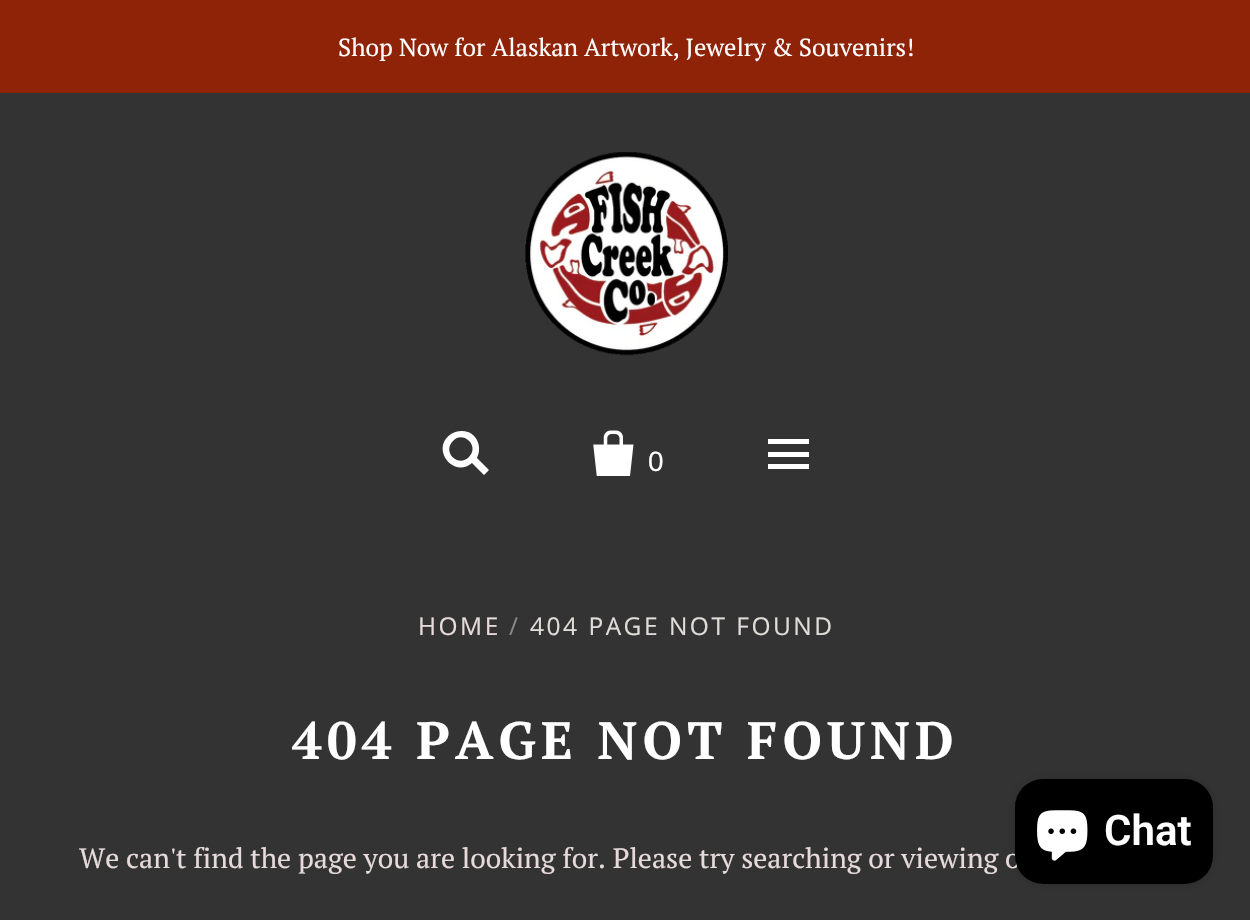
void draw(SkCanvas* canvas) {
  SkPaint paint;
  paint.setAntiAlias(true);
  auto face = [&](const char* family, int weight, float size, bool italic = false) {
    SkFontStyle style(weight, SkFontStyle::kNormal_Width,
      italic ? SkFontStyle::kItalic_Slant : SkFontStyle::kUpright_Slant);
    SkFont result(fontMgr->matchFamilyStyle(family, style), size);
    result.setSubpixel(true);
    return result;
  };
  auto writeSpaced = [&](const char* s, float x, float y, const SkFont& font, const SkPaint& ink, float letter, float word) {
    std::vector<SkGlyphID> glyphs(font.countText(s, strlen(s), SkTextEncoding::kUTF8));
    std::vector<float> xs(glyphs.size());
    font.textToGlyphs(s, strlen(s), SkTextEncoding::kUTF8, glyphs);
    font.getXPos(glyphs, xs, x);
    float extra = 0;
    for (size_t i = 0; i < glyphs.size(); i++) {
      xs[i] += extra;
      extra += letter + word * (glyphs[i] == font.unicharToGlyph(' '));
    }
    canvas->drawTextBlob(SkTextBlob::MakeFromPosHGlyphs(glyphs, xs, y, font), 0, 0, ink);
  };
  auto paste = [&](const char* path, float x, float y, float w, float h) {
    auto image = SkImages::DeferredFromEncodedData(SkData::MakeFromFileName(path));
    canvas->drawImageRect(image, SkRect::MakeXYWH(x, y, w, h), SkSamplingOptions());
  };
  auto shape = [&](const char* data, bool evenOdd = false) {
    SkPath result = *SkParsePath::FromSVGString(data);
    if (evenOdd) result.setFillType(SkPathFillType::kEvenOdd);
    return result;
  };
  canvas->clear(0xff333333);
  paint.setColor(0xff8e2308);
  canvas->drawRect(SkRect::MakeXYWH(0, 0, 1250, 93), paint);
  paste("img/1.png", 525, 152, 203, 204);
  paint.setColor(0xffffffff);
  canvas->drawPath(shape("M477 458C482 448 478 436 468 432C462 430 456 431 451 434C430 448 453 479 472 463L484 475L489 470ZM469 457C458 468 442 452 453 441C463 430 480 446 469 457Z"), paint);
  paste("img/2.png", 593, 430, 41, 46);
  {
    const struct { float x, y, w, h; SkColor color; } items[] = {
      {768, 452, 41, 5, 0xffffffff},
      {768, 439, 41, 5, 0xffffffff},
      {768, 464, 41, 5, 0xffffffff},
    };
    for (auto [x, y, w, h, color] : items) {
      paint.setColor(color);
      canvas->drawRect(SkRect::MakeXYWH(x, y, w, h), paint);
    }
  }
  paint.setColor(0x26000000);
  paint.setMaskFilter(SkMaskFilter::MakeBlur(kNormal_SkBlurStyle, 4.5f));
  canvas->drawRoundRect(SkRect::MakeXYWH(1015, 779, 198, 105), 28, 28, paint);
  paint.setMaskFilter(nullptr);
  auto f0 = face("PT Serif", 400, 24.5f);
  paint.setColor(0xffffffff);
  canvas->drawString("Shop Now for Alaskan Artwork, Jewelry & Souvenirs!", 338, 56, f0, paint);
  auto f1 = face("Liberation Sans", 400, 28);
  canvas->drawString("0", 648, 471, f1, paint);
  auto f2 = face("Open Sans", 400, 24.5f);
  paint.setColor(0xffe6dada);
  writeSpaced("HOME", 418, 635, f2, paint, 2.5f, 0);
  paint.setColor(0xff898886);
  writeSpaced("/", 509, 635, f2, paint, 2.5f, 0);
  paint.setColor(0xffe0ddd9);
  writeSpaced("404 PAGE NOT FOUND", 530, 635, f2, paint, 2.5f, 0);
  auto f3 = face("PT Serif", 700, 52.5f);
  paint.setColor(0xffffffff);
  writeSpaced("404 PAGE NOT FOUND", 292, 759, f3, paint, 5.25f, 0);
  auto f4 = face("PT Serif", 400, 28);
  paint.setColor(0xffe6dada);
  canvas->drawString("We can't find the page you are looking for. Please try searching or viewing o", 79, 868, f4, paint);
  paint.setColor(0xff000000);
  canvas->drawRoundRect(SkRect::MakeXYWH(1015, 779, 198, 105), 28, 28, paint);
  paste("img/3.png", 1037, 810, 51, 51);
  auto f5 = face("Roboto", 600, 42);
  paint.setColor(0xffffffff);
  canvas->drawString("Chat", 1104, 845, f5, paint);
}
